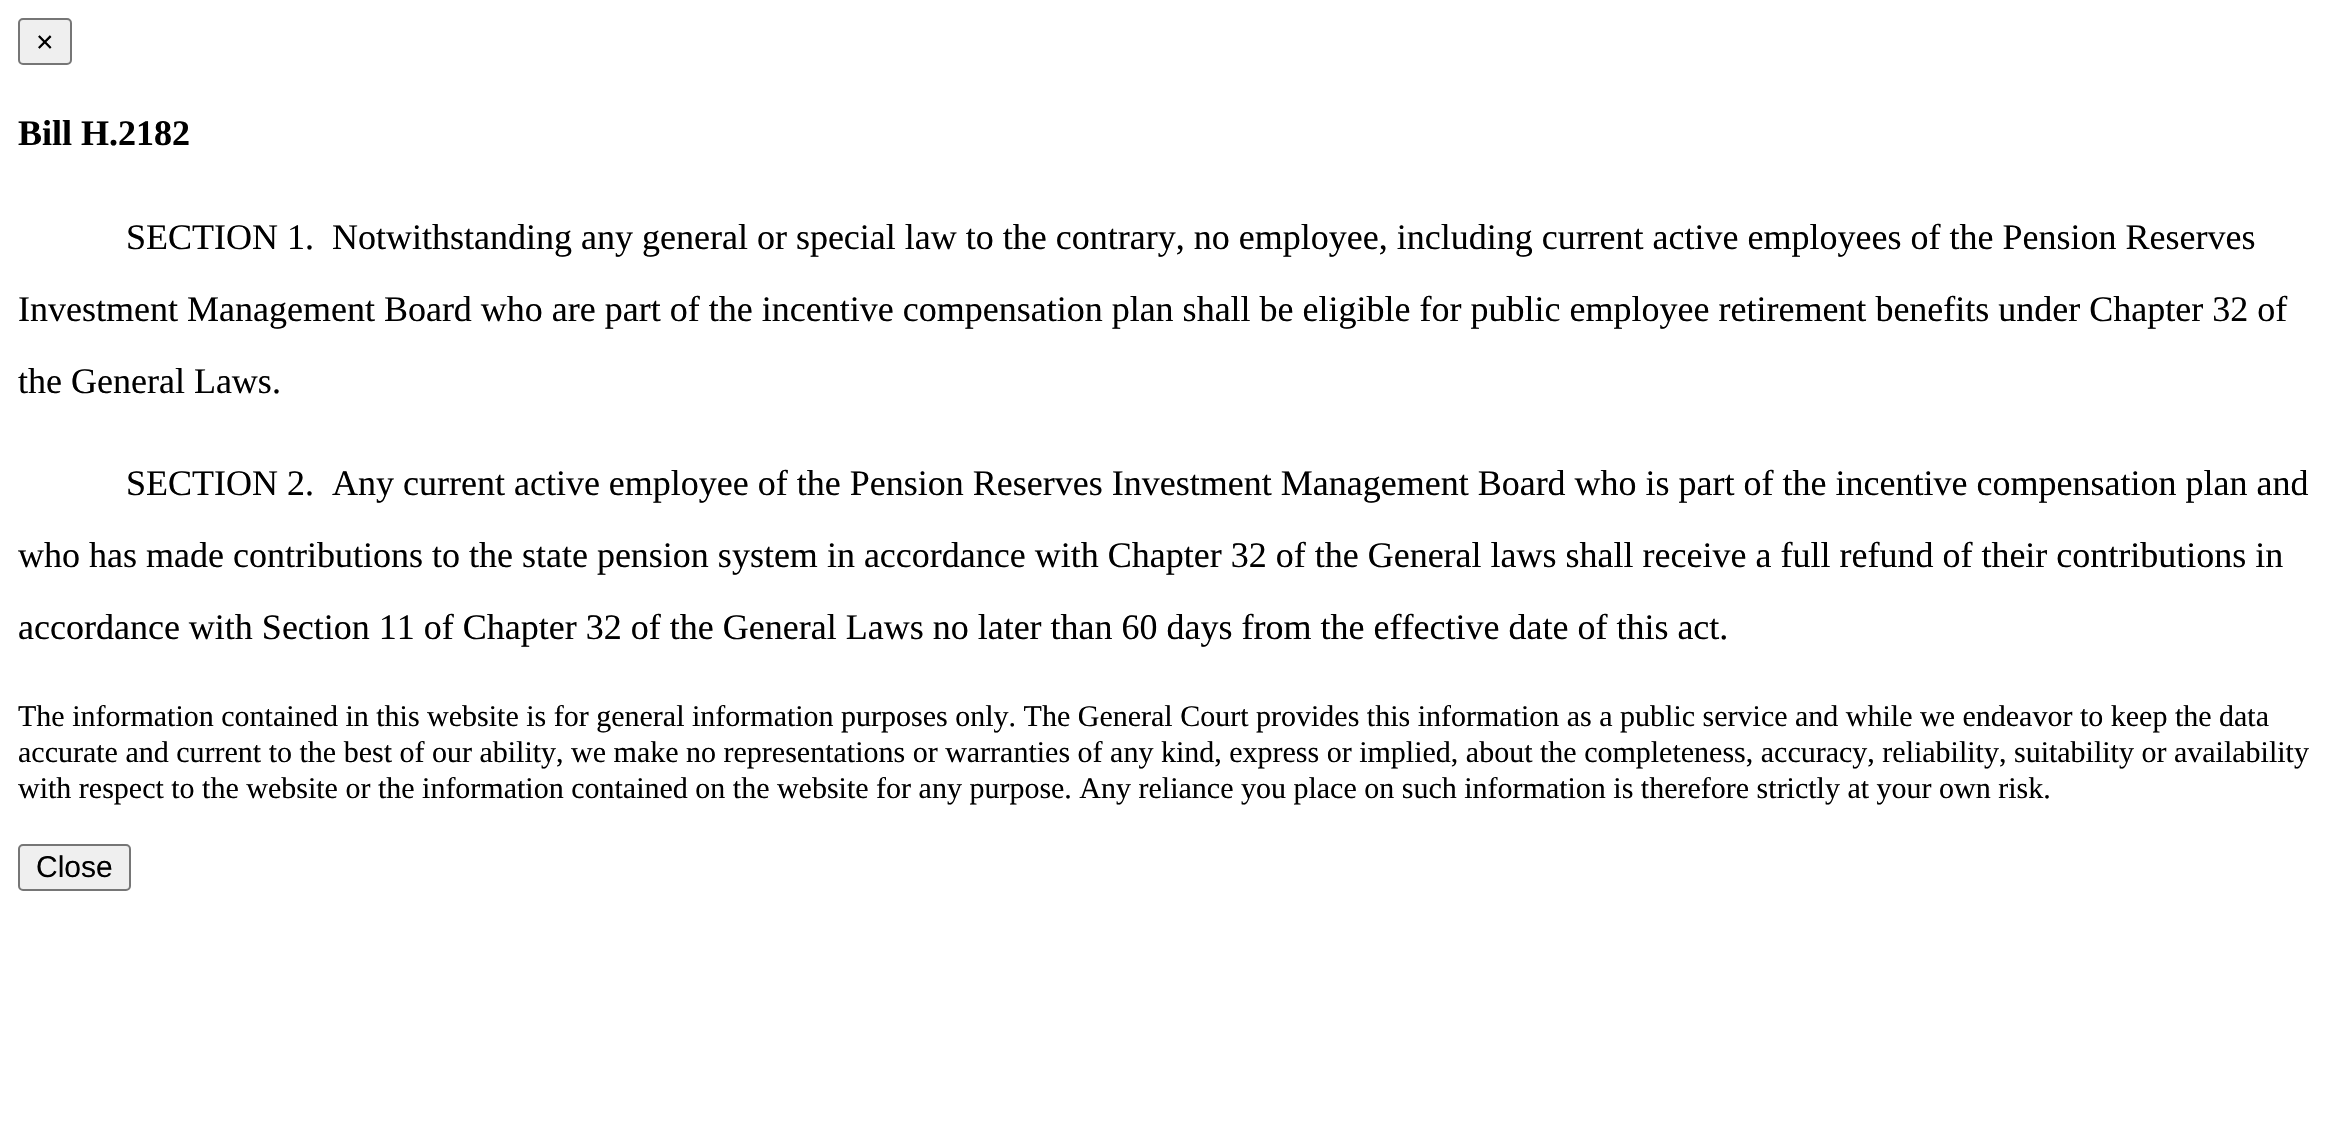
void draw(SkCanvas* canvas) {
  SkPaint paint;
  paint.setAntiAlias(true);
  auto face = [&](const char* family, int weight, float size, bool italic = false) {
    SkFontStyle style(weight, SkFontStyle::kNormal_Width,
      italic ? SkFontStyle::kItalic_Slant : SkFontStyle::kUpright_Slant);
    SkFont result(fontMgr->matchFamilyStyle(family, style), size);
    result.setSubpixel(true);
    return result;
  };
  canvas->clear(0xffffffff);
  paint.setColor(0xffefefef);
  canvas->drawRoundRect(SkRect::MakeXYWH(19, 19, 52, 45), 4, 4, paint);
  paint.setStroke(true);
  paint.setStrokeWidth(2);
  paint.setColor(0xff767676);
  canvas->drawRoundRect(SkRect::MakeXYWH(19, 19, 52, 45), 4, 4, paint);
  paint.setStroke(false);
  paint.setColor(0xffefefef);
  canvas->drawRoundRect(SkRect::MakeXYWH(19, 845, 111, 45), 4, 4, paint);
  paint.setStroke(true);
  paint.setColor(0xff767676);
  canvas->drawRoundRect(SkRect::MakeXYWH(19, 845, 111, 45), 4, 4, paint);
  auto f0 = face("Liberation Sans", 400, 30);
  paint.setStroke(false);
  paint.setColor(0xff000000);
  canvas->drawString("×", 36, 52, f0, paint);
  auto f1 = face("Liberation Serif", 700, 36);
  canvas->drawString("Bill H.2182", 18, 145, f1, paint);
  auto f2 = face("Liberation Serif", 400, 36);
  {
    const struct { const char* s; float x, y; } items[] = {
      {"SECTION 1.  Notwithstanding any general or special law to the contrary, no employee, including current active employees of the Pension Reserves", 126, 249},
      {"Investment Management Board who are part of the incentive compensation plan shall be eligible for public employee retirement benefits under Chapter 32 of", 18, 321},
      {"the General Laws.", 18, 393},
      {"SECTION 2.  Any current active employee of the Pension Reserves Investment Management Board who is part of the incentive compensation plan and", 126, 495},
      {"who has made contributions to the state pension system in accordance with Chapter 32 of the General laws shall receive a full refund of their contributions in", 18, 567},
      {"accordance with Section 11 of Chapter 32 of the General Laws no later than 60 days from the effective date of this act.", 18, 639},
    };
    for (auto [s, x, y] : items) {
      canvas->drawString(s, x, y, f2, paint);
    }
  }
  auto f3 = face("Liberation Serif", 400, 30);
  {
    const struct { const char* s; float x, y; } items[] = {
      {"The information contained in this website is for general information purposes only. The General Court provides this information as a public service and while we endeavor to keep the data", 18, 726},
      {"accurate and current to the best of our ability, we make no representations or warranties of any kind, express or implied, about the completeness, accuracy, reliability, suitability or availability", 18, 762},
      {"with respect to the website or the information contained on the website for any purpose. Any reliance you place on such information is therefore strictly at your own risk.", 18, 798},
    };
    for (auto [s, x, y] : items) {
      canvas->drawString(s, x, y, f3, paint);
    }
  }
  canvas->drawString("Close", 36, 877, f0, paint);
}
